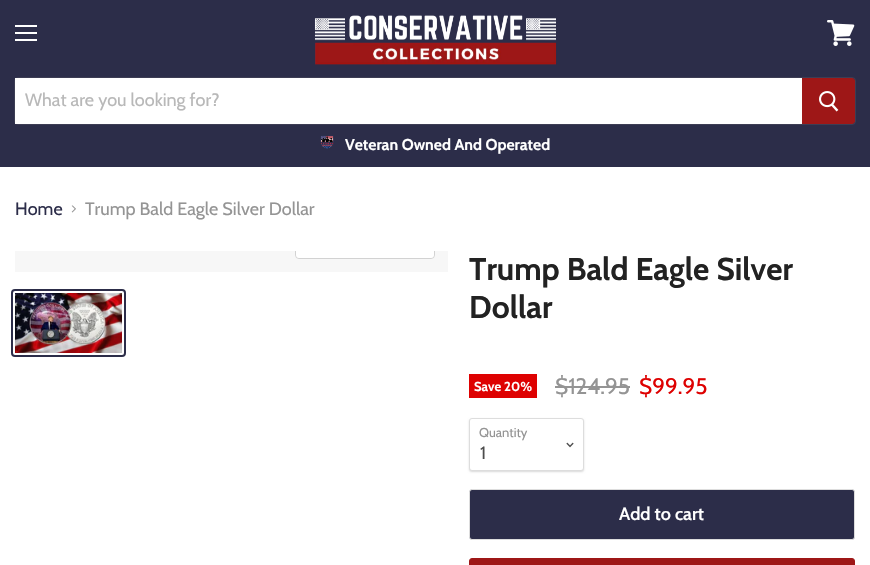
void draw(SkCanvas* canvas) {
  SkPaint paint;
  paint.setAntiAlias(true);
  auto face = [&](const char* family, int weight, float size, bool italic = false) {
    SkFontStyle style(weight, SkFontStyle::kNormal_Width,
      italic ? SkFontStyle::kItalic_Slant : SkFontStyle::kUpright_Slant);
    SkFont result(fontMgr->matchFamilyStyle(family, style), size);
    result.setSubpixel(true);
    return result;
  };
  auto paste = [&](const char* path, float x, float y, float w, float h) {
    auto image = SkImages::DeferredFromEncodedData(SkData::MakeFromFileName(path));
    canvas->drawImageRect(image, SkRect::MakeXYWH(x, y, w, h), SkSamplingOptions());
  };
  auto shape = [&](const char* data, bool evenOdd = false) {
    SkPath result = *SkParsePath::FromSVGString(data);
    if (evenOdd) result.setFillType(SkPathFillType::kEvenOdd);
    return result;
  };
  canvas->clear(0xffffffff);
  {
    const struct { float x, y, w, h; SkColor color; } items[] = {
      {0, 0, 870, 167, 0xff2c2d49},
      {15, 25, 22, 2, 0xffffffff},
      {15, 32, 22, 2, 0xffffffff},
      {15, 39, 22, 2, 0xffffffff},
    };
    for (auto [x, y, w, h, color] : items) {
      paint.setColor(color);
      canvas->drawRect(SkRect::MakeXYWH(x, y, w, h), paint);
    }
  }
  paste("img/1.png", 827, 20, 28, 26);
  paste("img/2.png", 314, 15, 243, 50);
  paint.setStroke(true);
  paint.setStrokeWidth(1);
  paint.setColor(0x337f7f7f);
  canvas->drawRoundRect(SkRect::MakeXYWH(14.5f, 77.5f, 841, 47), 3.5f, 3.5f, paint);
  paint.setStroke(false);
  paint.setColor(0xffffffff);
  canvas->drawRect(SkRect::MakeXYWH(15, 78, 787, 46), paint);
  paint.setColor(0xff9e1717);
  canvas->drawPath(shape("M802.5 78.5H852C853.5 78.5 854.5 79.5 854.5 81V121C854.5 122.5 853.5 123.5 852 123.5H802.5Z"), paint);
  paint.setStroke(true);
  canvas->drawPath(shape("M802.5 78.5H852C853.5 78.5 854.5 79.5 854.5 81V121C854.5 122.5 853.5 123.5 852 123.5H802.5Z"), paint);
  paste("img/3.png", 819, 91, 20, 21);
  paste("img/4.png", 320, 135, 14, 14);
  paste("img/5.png", 71, 205, 5, 8);
  paint.setStroke(false);
  paint.setColor(0xfff7f7f7);
  canvas->drawRect(SkRect::MakeXYWH(15, 251, 433, 21), paint);
  canvas->save();
  canvas->clipRect(SkRect::MakeXYWH(15, 251, 433, 21));
  paint.setStroke(true);
  paint.setColor(0xffd2d2d2);
  canvas->drawRoundRect(SkRect::MakeXYWH(295.5f, 227.5f, 139, 31), 3.5f, 3.5f, paint);
  canvas->restore();
  paint.setStroke(false);
  paint.setColor(0xe6ffffff);
  canvas->drawPath(shape("M296 251H434V255C434 256.5 432.5 258 431 258H299C297.5 258 296 256.5 296 255Z"), paint);
  paint.setStroke(true);
  paint.setStrokeWidth(2);
  paint.setColor(0xff2c2d49);
  canvas->drawRoundRect(SkRect::MakeXYWH(12, 290, 113, 66), 3, 3, paint);
  paste("img/6.png", 15, 293, 107, 60);
  paint.setStroke(false);
  paint.setColor(0xffde0101);
  canvas->drawRect(SkRect::MakeXYWH(469, 374, 68, 24), paint);
  paint.setColor(0xff949494);
  canvas->drawRect(SkRect::MakeXYWH(555, 386, 75, 2), paint);
  paint.setColor(0x26000000);
  paint.setMaskFilter(SkMaskFilter::MakeBlur(kNormal_SkBlurStyle, 1));
  canvas->drawRoundRect(SkRect::MakeXYWH(469, 419, 115, 53), 3, 3, paint);
  paint.setMaskFilter(nullptr);
  paint.setColor(0xffffffff);
  canvas->drawRoundRect(SkRect::MakeXYWH(469.5f, 418.5f, 114, 52), 2.5f, 2.5f, paint);
  paint.setStroke(true);
  paint.setStrokeWidth(1);
  paint.setColor(0xffdddddd);
  canvas->drawRoundRect(SkRect::MakeXYWH(469.5f, 418.5f, 114, 52), 2.5f, 2.5f, paint);
  paste("img/7.png", 566, 442, 8, 6);
  paint.setStroke(false);
  paint.setColor(0xff2c2d49);
  canvas->drawRoundRect(SkRect::MakeXYWH(469.5f, 489.5f, 385, 50), 2.5f, 2.5f, paint);
  paint.setStroke(true);
  paint.setColor(0xffdddddd);
  canvas->drawRoundRect(SkRect::MakeXYWH(469.5f, 489.5f, 385, 50), 2.5f, 2.5f, paint);
  paint.setStroke(false);
  paint.setColor(0xff9e1717);
  canvas->drawRoundRect(SkRect::MakeXYWH(469.5f, 558.5f, 385, 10), 2.5f, 2.5f, paint);
  paint.setStroke(true);
  canvas->drawRoundRect(SkRect::MakeXYWH(469.5f, 558.5f, 385, 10), 2.5f, 2.5f, paint);
  auto f0 = face("Cabin", 400, 18);
  paint.setStroke(false);
  paint.setColor(0xffb8b8b8);
  canvas->drawString("What are you looking for?", 25, 106, f0, paint);
  auto f1 = face("Cabin", 700, 15.75f);
  paint.setColor(0xffffffff);
  canvas->drawString("Veteran Owned And Operated", 345, 150, f1, paint);
  paint.setColor(0xff2c2d49);
  canvas->drawString("Home", 15, 215, f0, paint);
  paint.setColor(0xff949494);
  canvas->drawString("Trump Bald Eagle Silver Dollar", 85, 215, f0, paint);
  auto f2 = face("Cabin", 700, 31.5f);
  paint.setColor(0xff222222);
  canvas->drawString("Trump Bald Eagle Silver", 469, 280, f2, paint);
  canvas->drawString("Dollar", 469, 318, f2, paint);
  auto f3 = face("Cabin", 700, 13);
  paint.setColor(0xffffffff);
  canvas->drawString("Save 20%", 474, 391, f3, paint);
  auto f4 = face("Cabin", 400, 22.5f);
  paint.setColor(0xff949494);
  canvas->drawString("$124.95", 555, 394, f4, paint);
  paint.setColor(0xffde0101);
  canvas->drawString("$99.95", 639, 394, f4, paint);
  auto f5 = face("Cabin", 400, 13);
  paint.setColor(0xff949494);
  canvas->drawString("Quantity", 479, 437, f5, paint);
  paint.setColor(0xff4d4d4d);
  canvas->drawString("1", 480, 459, f0, paint);
  auto f6 = face("Cabin", 600, 18);
  paint.setColor(0xffffffff);
  canvas->drawString("Add to cart", 619, 520, f6, paint);
}
